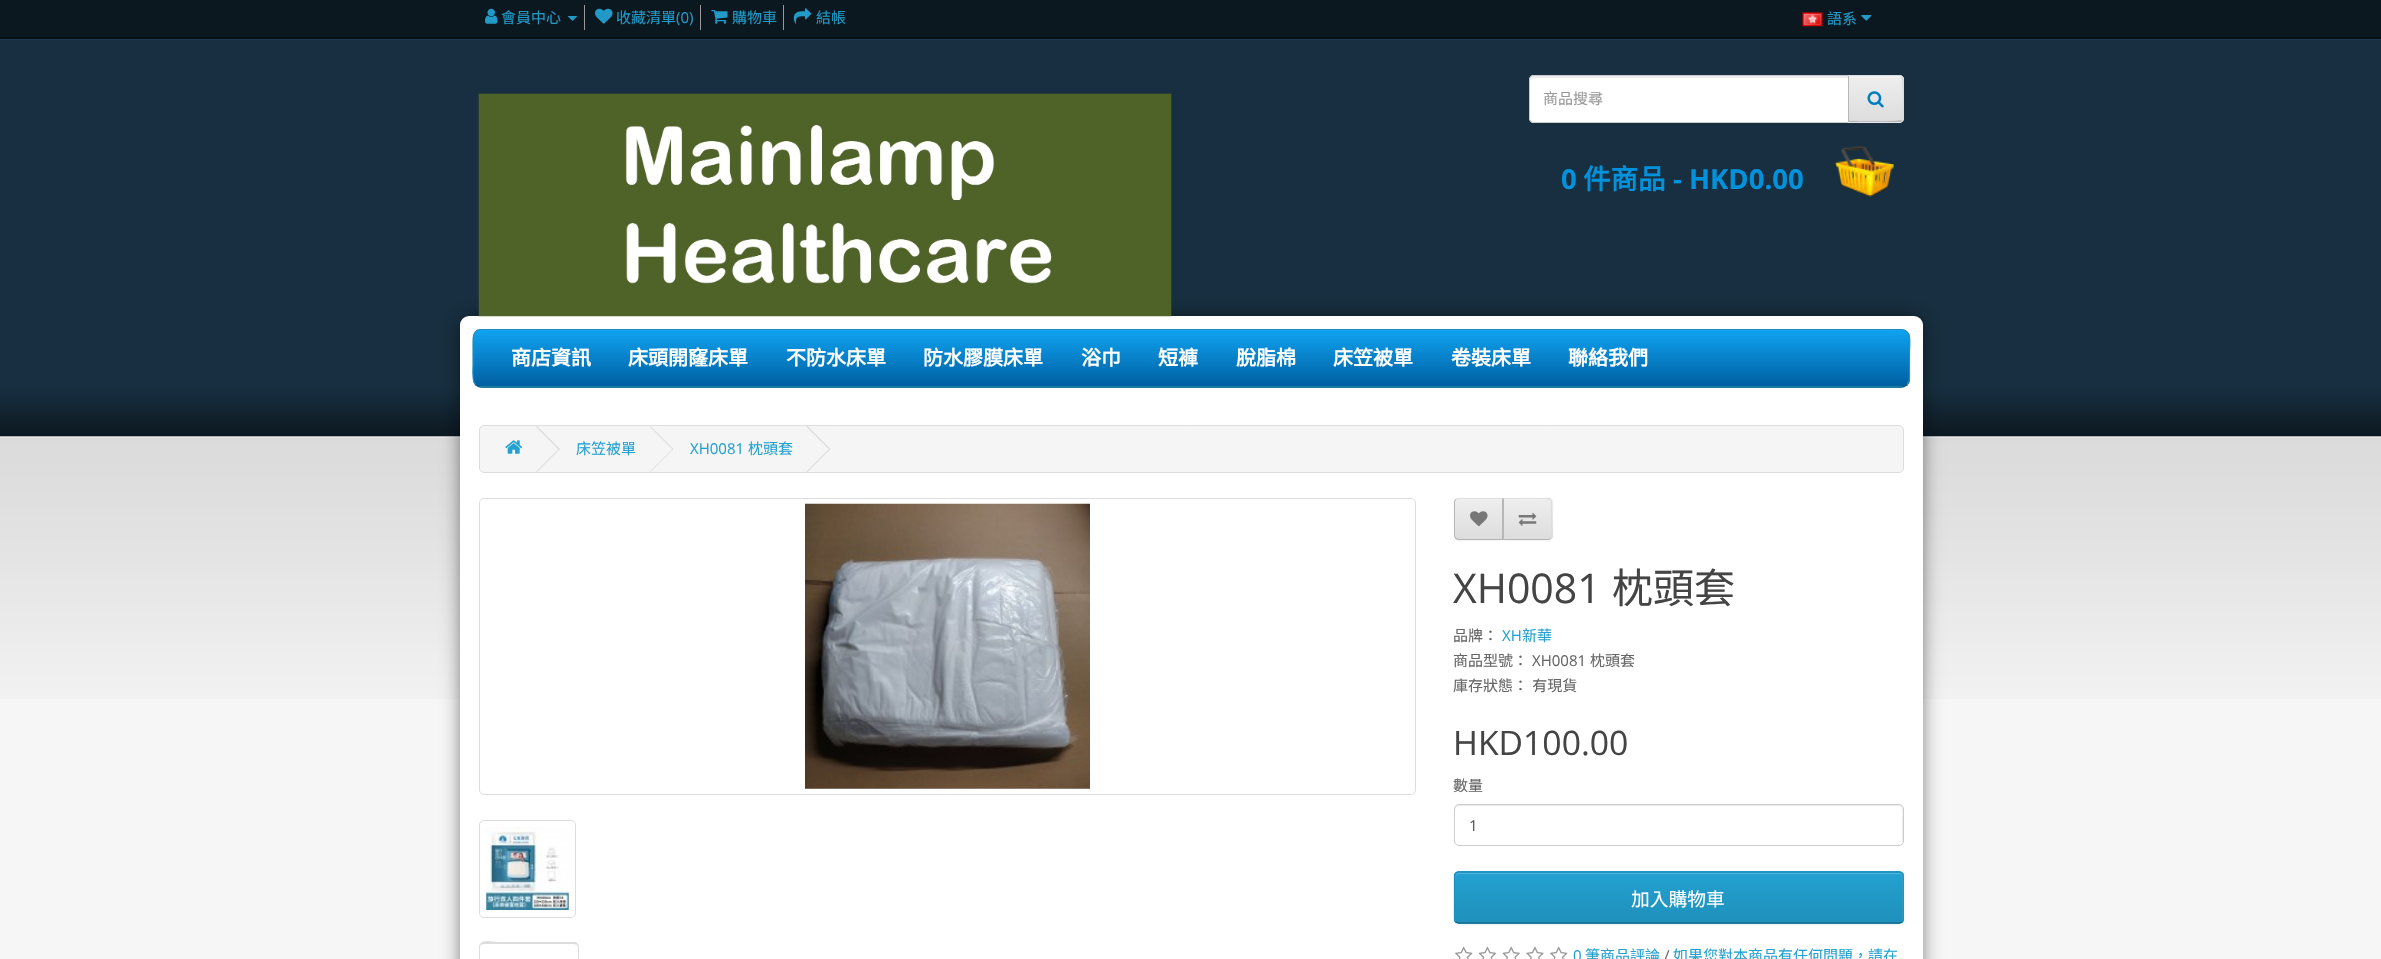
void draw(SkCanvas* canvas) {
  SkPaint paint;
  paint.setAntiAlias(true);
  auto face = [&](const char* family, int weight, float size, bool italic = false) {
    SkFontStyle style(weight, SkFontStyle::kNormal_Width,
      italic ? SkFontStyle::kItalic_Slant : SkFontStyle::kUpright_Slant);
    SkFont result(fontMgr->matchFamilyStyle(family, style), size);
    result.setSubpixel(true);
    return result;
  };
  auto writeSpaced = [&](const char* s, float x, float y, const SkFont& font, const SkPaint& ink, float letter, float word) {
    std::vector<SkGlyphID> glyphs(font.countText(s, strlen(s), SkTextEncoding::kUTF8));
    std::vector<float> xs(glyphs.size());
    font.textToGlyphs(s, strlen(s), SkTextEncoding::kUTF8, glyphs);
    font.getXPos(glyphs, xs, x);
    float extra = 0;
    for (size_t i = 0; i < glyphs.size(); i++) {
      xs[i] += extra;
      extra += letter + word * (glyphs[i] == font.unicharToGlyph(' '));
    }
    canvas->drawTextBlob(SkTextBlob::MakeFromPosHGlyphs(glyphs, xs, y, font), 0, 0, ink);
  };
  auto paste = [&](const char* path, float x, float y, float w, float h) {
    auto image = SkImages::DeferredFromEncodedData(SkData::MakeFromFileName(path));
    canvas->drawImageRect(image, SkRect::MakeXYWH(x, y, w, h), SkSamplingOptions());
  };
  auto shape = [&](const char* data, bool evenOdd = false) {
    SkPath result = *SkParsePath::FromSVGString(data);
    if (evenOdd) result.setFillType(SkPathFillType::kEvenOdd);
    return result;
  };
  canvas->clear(0xfff6f6f6);
  paste("img/1.png", 0, 0, 2381, 699);
  paint.setColor(0xff999999);
  canvas->drawRect(SkRect::MakeXYWH(584, 5, 1, 25), paint);
  paste("img/2.png", 485, 8, 13, 16);
  paint.setColor(0xff229ac8);
  canvas->drawPath(shape("M567.5 16H577.5L572.5 21Z"), paint);
  paint.setColor(0xff999999);
  canvas->drawRect(SkRect::MakeXYWH(700, 5, 1, 25), paint);
  paste("img/3.png", 595, 8, 18, 16);
  canvas->drawRect(SkRect::MakeXYWH(783, 5, 1, 25), paint);
  paste("img/4.png", 711, 10, 17, 14);
  paste("img/5.png", 793, 8, 19, 16);
  paste("img/6.png", 1802, 12, 21, 15);
  paste("img/7.png", 1861, 15, 11, 6);
  paint.setColor(0xbf000000);
  paint.setMaskFilter(SkMaskFilter::MakeBlur(kNormal_SkBlurStyle, 11));
  canvas->drawRoundRect(SkRect::MakeXYWH(465, 321, 1453, 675), 4, 4, paint);
  paint.setMaskFilter(nullptr);
  paint.setColor(0xffffffff);
  canvas->drawRoundRect(SkRect::MakeXYWH(460, 316, 1463, 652), 9, 9, paint);
  paste("img/8.png", 478, 93, 694, 224);
  canvas->drawPath(shape("M1534 75H1849V123H1534C1531 123 1529 121 1529 118V80C1529 77 1531 75 1534 75Z"), paint);
  paint.setColor(0xffececec);
  canvas->drawPath(shape("M1534 78H1848V76H1534C1532 76 1530 78 1530 80V81C1530 79 1532 78 1534 78Z"), paint);
  paint.setStroke(true);
  paint.setStrokeWidth(1);
  paint.setColor(0xffcccccc);
  canvas->drawPath(shape("M1534 75.5H1848.5V122.5H1534C1531.5 122.5 1529.5 120.5 1529.5 118V80C1529.5 77.5 1531.5 75.5 1534 75.5Z"), paint);
  paint.setStroke(false);
  paint.setColor(0xffe7e7e7);
  canvas->drawPath(shape("M1848 75H1899C1902 75 1904 77 1904 80V118C1904 121 1902 123 1899 123H1848Z"), paint);
  canvas->save();
  canvas->clipPath(shape("M1848 75H1899C1902 75 1904 77 1904 80V118C1904 121 1902 123 1899 123H1848Z"), true);
  {
    const SkColor colors[] = {0xffeeeeee, 0xffdddddd};
    const float stops[] = {0, 1};
    const SkPoint ends[] = {{1876, 76}, {1876, 121}};
    paint.setShader(SkGradientShader::MakeLinear(ends, colors, stops, 2, SkTileMode::kClamp));
    paint.setAlpha(255);
  }
  canvas->drawRect(SkRect::MakeXYWH(1849, 76, 55, 45), paint);
  canvas->restore();
  paint.setShader(nullptr);
  paint.setColor(0x33ffffff);
  canvas->drawPath(shape("M1849 78H1891C1906 78 1902 77 1902 94V120C1903 119 1903 118 1903 117V80C1903 78 1901 76 1899 76H1849Z"), paint);
  paint.setColor(0xffdddddd);
  canvas->drawPath(shape("M1848 75L1849 76H1900L1901 77L1902 76C1902 75 1900 75 1899 75Z"), paint);
  canvas->drawPath(shape("M1904 119L1902 121L1901 120C1903 119 1903 80 1901 77L1902 76L1904 78Z"), paint);
  paint.setColor(0xffb3b3b3);
  canvas->drawPath(shape("M1902 121C1901 122 1900 122 1899 122H1848L1849 121C1855 121 1900 122 1901 120Z"), paint);
  paint.setColor(0xffb7b7b7);
  canvas->drawPath(shape("M1848 76V122L1849 121V76Z"), paint);
  paste("img/9.png", 1867, 91, 17, 17);
  paste("img/10.png", 1835, 146, 60, 51);
  paint.setColor(0xff229ac8);
  canvas->drawRoundRect(SkRect::MakeXYWH(473, 329, 1437, 59), 9, 9, paint);
  canvas->save();
  canvas->clipPath(shape("M482 329H1901C1906 329 1910 333 1910 338V379C1910 384 1906 388 1901 388H482C477 388 473 384 473 379V338C473 333 477 329 482 329Z"), true);
  {
    const SkColor colors[] = {0xff0fa3f1, 0xff005fa1};
    const float stops[] = {0, 1};
    const SkPoint ends[] = {{1191, 330}, {1191, 386}};
    paint.setShader(SkGradientShader::MakeLinear(ends, colors, stops, 2, SkTileMode::kClamp));
    paint.setAlpha(255);
  }
  canvas->drawRect(SkRect::MakeXYWH(473, 330, 1437, 56), paint);
  canvas->restore();
  paint.setStroke(true);
  paint.setStrokeWidth(1.2f);
  paint.setShader(nullptr);
  paint.setColor(0xff145e7a);
  canvas->drawPath(shape("M1907 384.5C1905.5 386 1903.5 387 1901 387H481C479 387 477 386 475.5 384.5"), paint);
  paint.setColor(0xff1f90bb);
  canvas->drawPath(shape("M475.5 384.5C471.5 380.5 473 370 473 365V344.5C473 338 472.5 329.5 481 329.5H1901C1912.5 329.5 1909.5 345 1909.5 351V372C1909.5 376 1910.5 381 1907 384.5"), paint);
  paint.setStroke(false);
  paint.setColor(0xfff5f5f5);
  canvas->drawRoundRect(SkRect::MakeXYWH(479.5f, 425.5f, 1424, 47), 4.5f, 4.5f, paint);
  paint.setStroke(true);
  paint.setStrokeWidth(1);
  paint.setColor(0xffdddddd);
  canvas->drawRoundRect(SkRect::MakeXYWH(479.5f, 425.5f, 1424, 47), 4.5f, 4.5f, paint);
  paste("img/11.png", 505, 440, 18, 14);
  paint.setStroke(false);
  canvas->drawPath(shape("M536 427L537 426L560 449L559 450Z"), paint);
  canvas->drawPath(shape("M536 471.5L559 448.5L560 449L537 472Z"), paint);
  canvas->drawPath(shape("M650 427L650.5 426L673.5 449L673 450Z"), paint);
  canvas->drawPath(shape("M650 471.5L673 448.5L673.5 449L650.5 472Z"), paint);
  canvas->drawPath(shape("M806.5 427L807.5 426L830.5 449L829.5 450Z"), paint);
  canvas->drawPath(shape("M806.5 471.5L829.5 448.5L830.5 449L807.5 472Z"), paint);
  paint.setStroke(true);
  canvas->drawRoundRect(SkRect::MakeXYWH(479.5f, 498.5f, 936, 296), 4.5f, 4.5f, paint);
  paste("img/12.png", 805, 503, 285, 286);
  canvas->drawRoundRect(SkRect::MakeXYWH(479.5f, 820.5f, 96, 97), 4.5f, 4.5f, paint);
  paste("img/13.png", 486, 827, 83, 83);
  paint.setStroke(false);
  canvas->drawPath(shape("M484 944L481 945L480 944C484 939 494 942 498 942H576L578 944L577 945L574 944Z"), paint);
  canvas->drawPath(shape("M579 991L578 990V948C578 946 577 945 577 945L578 944L579 946Z"), paint);
  canvas->drawPath(shape("M479 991L480 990V948C480 947 480 946 481 945L480 944C479 945 479 947 479 948Z"), paint);
  paint.setColor(0x0d000000);
  paint.setMaskFilter(SkMaskFilter::MakeBlur(kNormal_SkBlurStyle, 1));
  canvas->drawRoundRect(SkRect::MakeXYWH(1454, 499, 50, 42), 5, 5, paint);
  paint.setMaskFilter(nullptr);
  paint.setColor(0xffe7e7e7);
  canvas->drawPath(shape("M1459 498H1504V540H1459C1456 540 1454 538 1454 535V503C1454 500 1456 498 1459 498Z"), paint);
  canvas->save();
  canvas->clipPath(shape("M1459 498H1504V540H1459C1456 540 1454 538 1454 535V503C1454 500 1456 498 1459 498Z"), true);
  {
    const SkColor colors[] = {0xffeeeeee, 0xffdddddd};
    const float stops[] = {0, 1};
    const SkPoint ends[] = {{1479, 499}, {1479, 539}};
    paint.setShader(SkGradientShader::MakeLinear(ends, colors, stops, 2, SkTileMode::kClamp));
    paint.setAlpha(255);
  }
  canvas->drawRect(SkRect::MakeXYWH(1454, 499, 48, 40), paint);
  canvas->restore();
  paint.setShader(nullptr);
  paint.setColor(0x33ffffff);
  canvas->drawPath(shape("M1459 500H1502V539H1503V499H1459C1457 499 1455 501 1455 503V504C1455 502 1457 500 1459 500Z"), paint);
  paint.setColor(0xffdddddd);
  canvas->drawPath(shape("M1459 498L1455 499L1456 500L1459 499H1502L1503 498Z"), paint);
  paint.setColor(0xffb3b3b3);
  canvas->drawPath(shape("M1504 540L1502 538V539H1459C1458 539 1457 538 1456 538H1455C1456 539 1457 540 1459 540Z"), paint);
  paint.setColor(0xffb7b7b7);
  canvas->drawPath(shape("M1455.5 499C1454.5 500 1454 501 1454 502V535C1454 536.5 1454.5 537.5 1455.5 538.5L1456 537.5C1455.5 537 1455 536 1455 535V502C1455 501 1455.5 500.5 1456 500Z"), paint);
  paste("img/14.png", 1470, 511, 18, 16);
  paint.setColor(0x0d000000);
  paint.setMaskFilter(SkMaskFilter::MakeBlur(kNormal_SkBlurStyle, 1));
  canvas->drawRoundRect(SkRect::MakeXYWH(1503, 499, 50, 42), 5, 5, paint);
  paint.setMaskFilter(nullptr);
  paint.setColor(0xffe7e7e7);
  canvas->drawPath(shape("M1503 498H1548C1551 498 1553 500 1553 503V535C1553 538 1551 540 1548 540H1503Z"), paint);
  canvas->save();
  canvas->clipPath(shape("M1503 498H1548C1551 498 1553 500 1553 503V535C1553 538 1551 540 1548 540H1503Z"), true);
  {
    const SkColor colors[] = {0xffeeeeee, 0xffdddddd};
    const float stops[] = {0, 1};
    const SkPoint ends[] = {{1528, 499}, {1528, 539}};
    paint.setShader(SkGradientShader::MakeLinear(ends, colors, stops, 2, SkTileMode::kClamp));
    paint.setAlpha(255);
  }
  canvas->drawRect(SkRect::MakeXYWH(1503, 499, 50, 40), paint);
  canvas->restore();
  paint.setShader(nullptr);
  paint.setColor(0xfff1f1f1);
  canvas->drawPath(shape("M1504 500H1548C1550 500 1551 502 1551 504V503C1551 501 1549 499 1547 499H1504Z"), paint);
  paint.setColor(0xffdddddd);
  canvas->drawPath(shape("M1504 499C1509 499 1548 498 1550 500L1551 499C1550 498 1549 498 1548 498H1503Z"), paint);
  canvas->drawPath(shape("M1551 499C1551.5 500 1552 501 1552 502V535C1552 536.5 1551.5 537.5 1551 538.5L1550 538C1551 537 1551 536 1551 535V502C1551 501 1551 500 1550 500Z"), paint);
  paint.setColor(0xffb3b3b3);
  canvas->drawPath(shape("M1502 540H1549L1551 538H1550L1549 539H1504V538Z"), paint);
  paint.setColor(0xffb7b7b7);
  canvas->drawPath(shape("M1504 499L1502 498V540L1504 538Z"), paint);
  paste("img/15.png", 1518, 512, 19, 14);
  paint.setColor(0xffececec);
  canvas->drawPath(shape("M1459 806H1899C1904 806 1902 819 1902 821V844C1903 843 1903 842 1903 841V809C1903 807 1901 805 1899 805H1459C1457 805 1455 807 1455 809V810C1455 808 1457 806 1459 806Z"), paint);
  paint.setStroke(true);
  paint.setColor(0xffcccccc);
  canvas->drawRoundRect(SkRect::MakeXYWH(1454.5f, 804.5f, 449, 41), 4.5f, 4.5f, paint);
  paint.setStroke(false);
  paint.setColor(0x0d000000);
  paint.setMaskFilter(SkMaskFilter::MakeBlur(kNormal_SkBlurStyle, 1));
  canvas->drawRoundRect(SkRect::MakeXYWH(1454, 873, 450, 52), 5, 5, paint);
  paint.setMaskFilter(nullptr);
  paint.setColor(0xff229ac8);
  canvas->drawRoundRect(SkRect::MakeXYWH(1454, 871, 450, 53), 5, 5, paint);
  canvas->save();
  canvas->clipPath(shape("M1459 871H1899C1902 871 1904 873 1904 876V919C1904 922 1902 924 1899 924H1459C1456 924 1454 922 1454 919V876C1454 873 1456 871 1459 871Z"), true);
  {
    const SkColor colors[] = {0xff23a1d1, 0xff1f90bb};
    const float stops[] = {0, 1};
    const SkPoint ends[] = {{1679, 873}, {1679, 923}};
    paint.setShader(SkGradientShader::MakeLinear(ends, colors, stops, 2, SkTileMode::kClamp));
    paint.setAlpha(255);
  }
  canvas->drawRect(SkRect::MakeXYWH(1454, 873, 450, 50), paint);
  canvas->restore();
  paint.setShader(nullptr);
  paint.setColor(0x33ffffff);
  canvas->drawPath(shape("M1459 874H1899C1901 874 1902 875 1902 878V922C1902 921 1903 920 1903 919V877C1903 875 1901 873 1899 873H1459C1457 873 1455 875 1455 877V878C1455 875 1457 874 1459 874Z"), paint);
  paint.setStroke(true);
  paint.setStrokeWidth(1.2f);
  paint.setColor(0xff145e7a);
  canvas->drawPath(shape("M1902 922L1899 923H1459L1455.5 922"), paint);
  paint.setColor(0xff1f90bb);
  canvas->drawPath(shape("M1455.5 922C1455 921 1454.5 920 1454.5 919V876C1454.5 875 1455 874 1455.5 873C1456.5 872.5 1457.5 872 1459 872H1899C1900 872 1901 872.5 1902 873C1902.5 874 1903 875 1903 876V919C1903 920 1902.5 921 1902 922"), paint);
  paste("img/16.png", 1455, 946, 18, 13);
  paste("img/17.png", 1478, 946, 19, 13);
  paste("img/18.png", 1502, 946, 18, 13);
  paste("img/19.png", 1526, 946, 18, 13);
  paste("img/16.png", 1550, 946, 18, 13);
  auto f0 = face("Noto Sans CJK TC", 400, 15);
  paint.setStroke(false);
  paint.setColor(0xff229ac8);
  canvas->drawString("會員中心", 501, 23, f0, paint);
  canvas->drawString("收藏清單", 616, 23, f0, paint);
  auto f1 = face("Open Sans", 400, 15);
  canvas->drawString("(0)", 676, 23, f1, paint);
  {
    const struct { const char* s; float x, y; } items[] = {
      {"購物車", 732, 23},
      {"結帳", 816, 23},
      {"語系", 1827, 24},
    };
    for (auto [s, x, y] : items) {
      canvas->drawString(s, x, y, f0, paint);
    }
  }
  paint.setColor(0xff999999);
  canvas->drawString("商品搜尋", 1543, 104, f0, paint);
  auto f2 = face("Open Sans", 700, 27.5f);
  paint.setColor(0xff0092dc);
  canvas->drawString("0", 1561, 189, f2, paint);
  auto f3 = face("Noto Sans CJK TC", 700, 27.5f);
  canvas->drawString("件商品", 1583, 189, f3, paint);
  canvas->drawString("- HKD0.00", 1673, 189, f2, paint);
  auto f4 = face("Noto Sans CJK TC", 700, 20);
  paint.setColor(0xffffffff);
  {
    const struct { const char* s; float x, y; } items[] = {
      {"商店資訊", 511, 365},
      {"床頭開窿床單", 628, 365},
      {"不防水床單", 786, 365},
      {"防水膠膜床單", 923, 365},
      {"浴巾", 1081, 365},
      {"短褲", 1158, 365},
      {"脫脂棉", 1236, 365},
      {"床笠被單", 1333, 365},
      {"卷裝床單", 1451, 365},
      {"聯絡我們", 1568, 365},
    };
    for (auto [s, x, y] : items) {
      canvas->drawString(s, x, y, f4, paint);
    }
  }
  paint.setColor(0xff23a1d1);
  canvas->drawString("床笠被單", 576, 454, f0, paint);
  canvas->drawString("XH0081", 690, 454, f1, paint);
  canvas->drawString("枕頭套", 748, 454, f0, paint);
  auto f5 = face("Open Sans", 400, 41);
  paint.setColor(0xff444444);
  canvas->drawString("XH0081", 1453, 603, f5, paint);
  auto f6 = face("Noto Sans CJK TC", 400, 41);
  canvas->drawString("枕頭套", 1612, 603, f6, paint);
  paint.setColor(0xff666666);
  canvas->drawString("品牌：", 1453, 641, f0, paint);
  paint.setColor(0xff23a1d1);
  canvas->drawString("XH", 1502, 641, f1, paint);
  canvas->drawString("新華", 1522, 641, f0, paint);
  paint.setColor(0xff666666);
  canvas->drawString("商品型號：", 1453, 666, f0, paint);
  canvas->drawString("XH0081", 1532, 666, f1, paint);
  canvas->drawString("枕頭套", 1590, 666, f0, paint);
  writeSpaced("庫存狀態： 有現貨", 1453, 691, f0, paint, 0, 1);
  auto f7 = face("Open Sans", 400, 33.75f);
  paint.setColor(0xff444444);
  canvas->drawString("HKD100.00", 1453, 755, f7, paint);
  paint.setColor(0xff666666);
  canvas->drawString("數量", 1453, 791, f0, paint);
  paint.setColor(0xff555555);
  canvas->drawString("1", 1469, 831, f1, paint);
  auto f8 = face("Noto Sans CJK TC", 400, 18.75f);
  paint.setColor(0xffffffff);
  canvas->drawString("加入購物車", 1631, 906, f8, paint);
  paint.setColor(0xff23a1d1);
  canvas->drawString("0", 1573, 961, f1, paint);
  canvas->drawString("筆商品評論", 1585, 961, f0, paint);
  paint.setColor(0xff666666);
  canvas->drawString("/", 1664, 961, f1, paint);
  paint.setColor(0xff23a1d1);
  canvas->drawString("如果您對本商品有任何問題，請在", 1673, 961, f0, paint);
}
